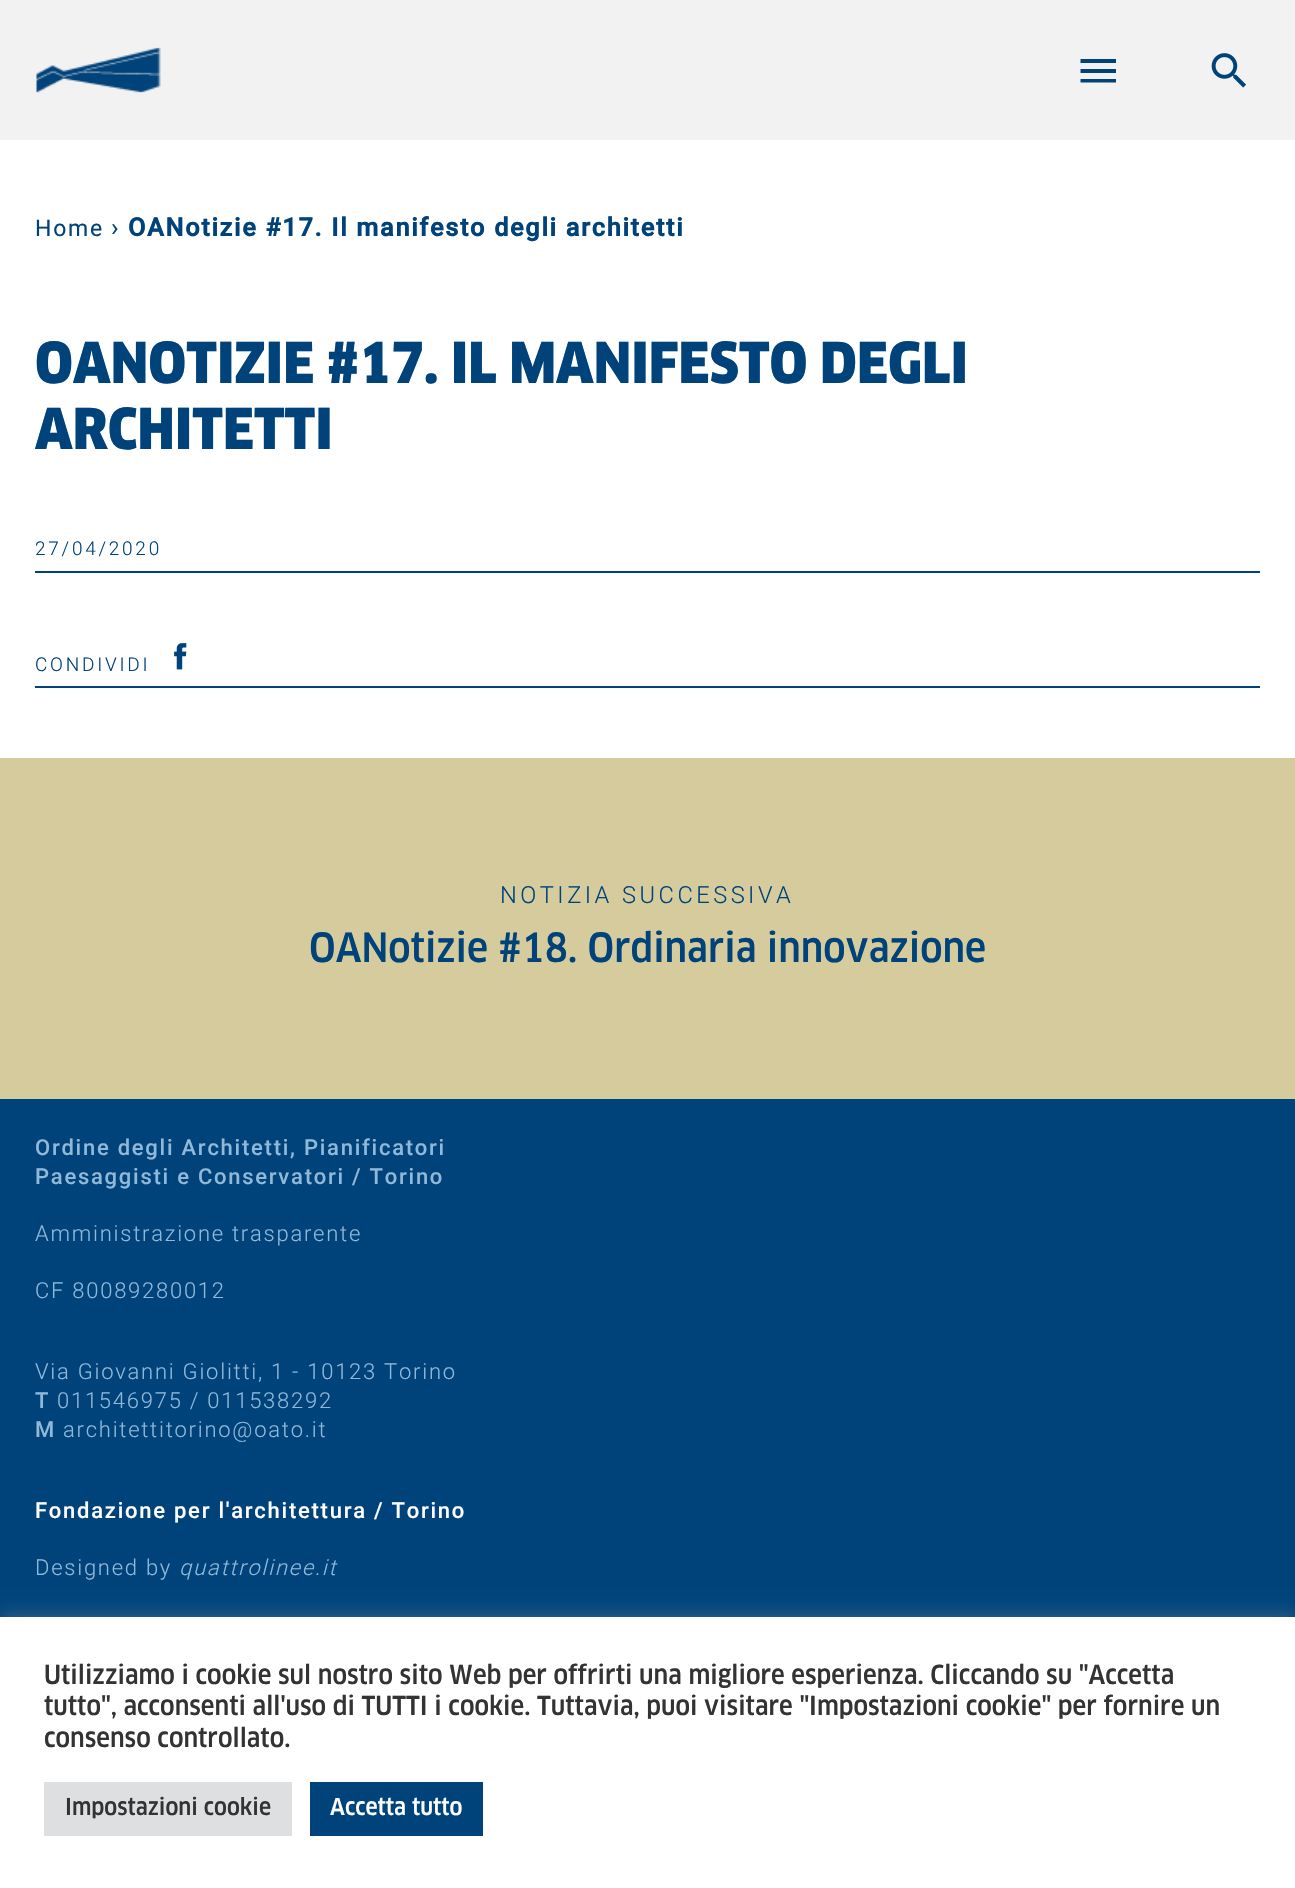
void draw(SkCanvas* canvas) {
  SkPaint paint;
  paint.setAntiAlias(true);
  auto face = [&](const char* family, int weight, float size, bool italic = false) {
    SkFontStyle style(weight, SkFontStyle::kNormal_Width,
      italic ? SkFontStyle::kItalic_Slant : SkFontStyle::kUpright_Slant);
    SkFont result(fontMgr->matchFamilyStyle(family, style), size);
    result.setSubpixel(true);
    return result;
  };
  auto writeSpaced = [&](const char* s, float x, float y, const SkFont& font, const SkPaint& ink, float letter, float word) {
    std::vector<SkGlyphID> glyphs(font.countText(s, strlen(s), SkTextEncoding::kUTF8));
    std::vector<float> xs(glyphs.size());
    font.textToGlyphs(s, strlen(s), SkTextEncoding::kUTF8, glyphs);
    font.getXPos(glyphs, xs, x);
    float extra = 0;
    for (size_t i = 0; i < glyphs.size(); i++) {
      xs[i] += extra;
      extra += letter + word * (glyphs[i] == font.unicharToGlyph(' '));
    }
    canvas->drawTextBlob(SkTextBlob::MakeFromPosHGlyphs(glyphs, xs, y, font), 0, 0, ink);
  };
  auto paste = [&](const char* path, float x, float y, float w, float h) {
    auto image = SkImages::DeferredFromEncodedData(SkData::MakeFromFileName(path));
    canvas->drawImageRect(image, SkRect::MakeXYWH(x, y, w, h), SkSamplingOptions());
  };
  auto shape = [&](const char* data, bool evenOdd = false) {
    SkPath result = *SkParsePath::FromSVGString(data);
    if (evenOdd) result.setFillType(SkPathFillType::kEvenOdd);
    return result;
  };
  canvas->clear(0xffffffff);
  paint.setColor(0xfff2f2f2);
  canvas->drawRect(SkRect::MakeXYWH(0, 0, 1295, 140), paint);
  paste("img/1.png", 36, 47, 125, 46);
  paint.setColor(0xff00437a);
  canvas->drawPath(shape("M1080.5 82.5H1116V79H1080.5ZM1080.5 73H1116V69H1080.5ZM1080.5 59V63H1116V59Z"), paint);
  paste("img/2.png", 1211, 53, 35, 35);
  canvas->drawRect(SkRect::MakeXYWH(35, 571, 1225, 2), paint);
  canvas->drawRect(SkRect::MakeXYWH(35, 686, 1225, 2), paint);
  paste("img/3.png", 174, 643, 13, 27);
  paint.setColor(0xffd6cb9d);
  canvas->drawRect(SkRect::MakeXYWH(0, 758, 1295, 341), paint);
  paint.setColor(0xff00437a);
  canvas->drawRect(SkRect::MakeXYWH(0, 1099, 1295, 518), paint);
  paint.setColor(0x4dacabab);
  paint.setMaskFilter(SkMaskFilter::MakeBlur(kNormal_SkBlurStyle, 9));
  canvas->drawRect(SkRect::MakeXYWH(0, 1615, 1295, 272), paint);
  paint.setMaskFilter(nullptr);
  {
    const struct { float x, y, w, h; SkColor color; } items[] = {
      {0, 1617, 1295, 271, 0xffffffff},
      {44, 1782, 248, 54, 0xffdedfe0},
      {310, 1782, 173, 54, 0xff00437a},
    };
    for (auto [x, y, w, h, color] : items) {
      paint.setColor(color);
      canvas->drawRect(SkRect::MakeXYWH(x, y, w, h), paint);
    }
  }
  auto f0 = face("Roboto", 400, 23);
  writeSpaced("Home", 35, 236, f0, paint, 1.75f, 0);
  auto f1 = face("Roboto", 400, 25.2f);
  writeSpaced("›", 111, 236, f1, paint, 1.75f, 0);
  auto f2 = face("Roboto", 700, 25.2f);
  writeSpaced("OANotizie #17. Il manifesto degli architetti", 128, 236, f2, paint, 1.75f, 0);
  auto f3 = face("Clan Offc", 900, 55.1f);
  canvas->drawString("OANOTIZIE #17. IL MANIFESTO DEGLI", 35, 383, f3, paint);
  canvas->drawString("ARCHITETTI", 35, 449, f3, paint);
  auto f4 = face("Roboto", 300, 19);
  writeSpaced("27/04/2020", 35, 555, f4, paint, 2.75f, 0);
  writeSpaced("CONDIVIDI", 35, 671, f4, paint, 2.75f, 0);
  auto f5 = face("Roboto", 300, 23.6f);
  writeSpaced("NOTIZIA SUCCESSIVA", 500, 903, f5, paint, 3.5f, 0);
  auto f6 = face("Clan Offc", 500, 39.4f);
  canvas->drawString("OANotizie #18. Ordinaria innovazione", 309, 962, f6, paint);
  auto f7 = face("Roboto", 500, 22);
  paint.setColor(0xff90b8d8);
  writeSpaced("Ordine degli Architetti, Pianificatori", 35, 1155, f7, paint, 1.75f, 0);
  writeSpaced("Paesaggisti e Conservatori / Torino", 35, 1184, f7, paint, 1.75f, 0);
  auto f8 = face("Roboto", 300, 22);
  {
    const struct { const char* s; float x, y; } items[] = {
      {"Amministrazione trasparente", 35, 1241},
      {"CF 80089280012", 35, 1298},
      {"Via Giovanni Giolitti, 1 - 10123 Torino", 35, 1379},
    };
    for (auto [s, x, y] : items) {
      writeSpaced(s, x, y, f8, paint, 1.75f, 0);
    }
  }
  writeSpaced("T", 35, 1408, f7, paint, 1.75f, 0);
  writeSpaced("011546975 / 011538292", 57, 1408, f8, paint, 1.75f, 0);
  writeSpaced("M", 35, 1437, f7, paint, 1.75f, 0);
  writeSpaced("architettitorino@oato.it", 63, 1437, f8, paint, 1.75f, 0);
  paint.setColor(0xffffffff);
  writeSpaced("Fondazione per l'architettura / Torino", 35, 1518, f7, paint, 1.75f, 0);
  paint.setColor(0xff90b8d8);
  writeSpaced("Designed by", 35, 1575, f8, paint, 1.75f, 0);
  auto f9 = face("Roboto", 300, 22, true);
  writeSpaced("quattrolinee.it", 179, 1575, f9, paint, 1.75f, 0);
  auto f10 = face("Clan Offc", 500, 25.65f);
  paint.setColor(0xff333333);
  {
    const struct { const char* s; float x, y; } items[] = {
      {"Utilizziamo i cookie sul nostro sito Web per offrirti una migliore esperienza. Cliccando su \"Accetta", 44, 1684},
      {"tutto\", acconsenti all'uso di TUTTI i cookie. Tuttavia, puoi visitare \"Impostazioni cookie\" per fornire un", 44, 1715},
      {"consenso controllato.", 44, 1747},
    };
    for (auto [s, x, y] : items) {
      canvas->drawString(s, x, y, f10, paint);
    }
  }
  auto f11 = face("Clan Offc", 500, 22.75f);
  canvas->drawString("Impostazioni cookie", 65, 1815, f11, paint);
  paint.setColor(0xffffffff);
  canvas->drawString("Accetta tutto", 330, 1815, f11, paint);
}
